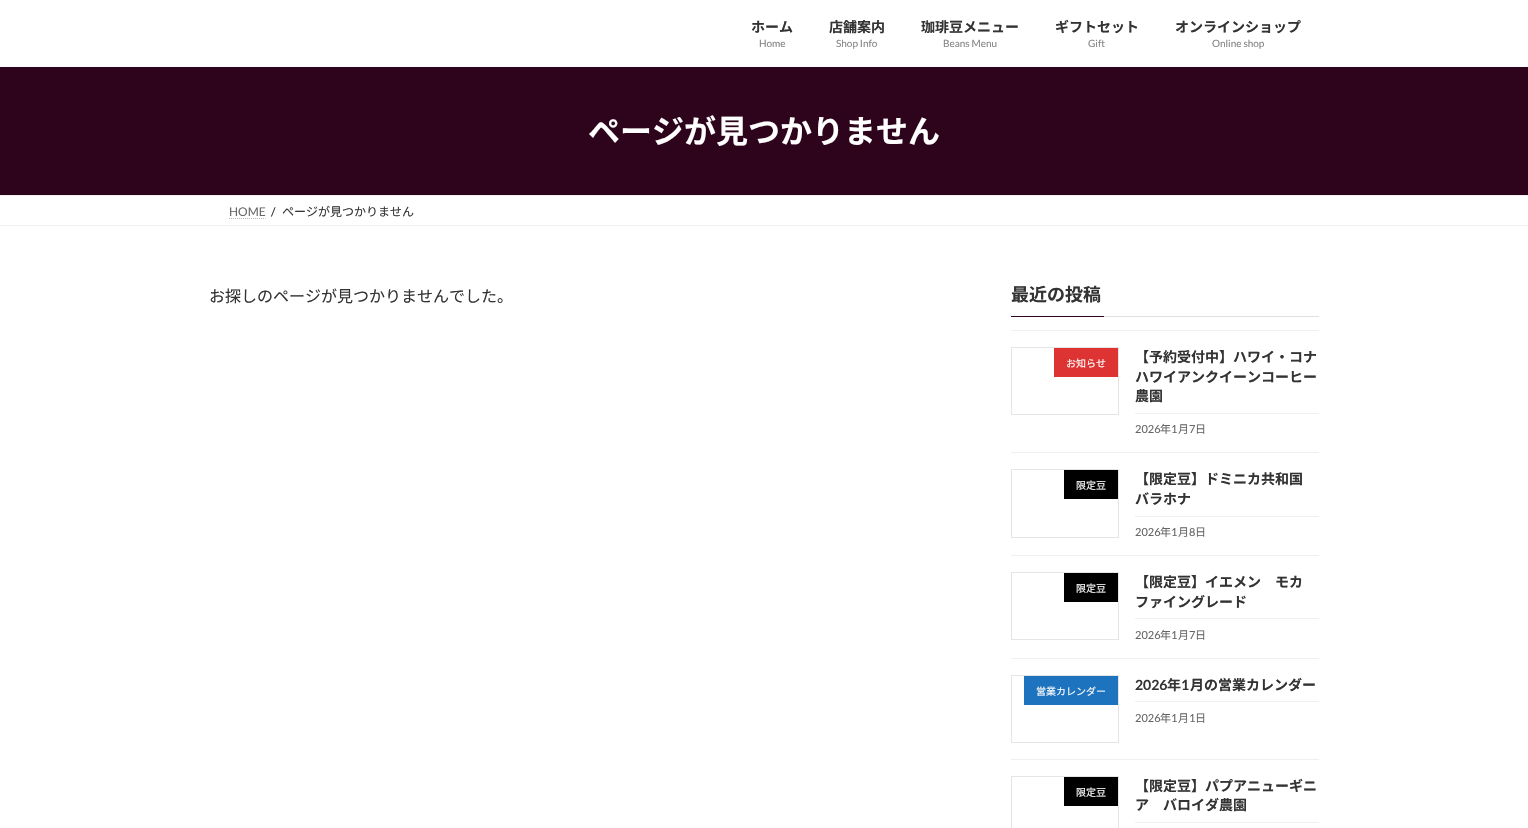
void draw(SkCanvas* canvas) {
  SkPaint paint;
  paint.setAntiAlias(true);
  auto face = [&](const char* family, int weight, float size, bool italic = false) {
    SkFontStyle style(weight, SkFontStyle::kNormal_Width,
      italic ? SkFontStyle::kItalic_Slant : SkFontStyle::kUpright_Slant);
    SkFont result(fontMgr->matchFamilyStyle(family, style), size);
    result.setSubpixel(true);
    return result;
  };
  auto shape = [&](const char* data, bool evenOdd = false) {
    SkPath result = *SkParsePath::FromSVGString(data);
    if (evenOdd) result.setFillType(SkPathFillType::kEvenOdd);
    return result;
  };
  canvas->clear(0xffffffff);
  {
    const struct { float x, y, w, h; SkColor color; } items[] = {
      {0, 67, 1528, 128, 0xff2d041b},
      {0, 195, 1528, 1, 0xfff0f0f0},
      {0, 225, 1528, 1, 0xfff0f0f0},
    };
    for (auto [x, y, w, h, color] : items) {
      paint.setColor(color);
      canvas->drawRect(SkRect::MakeXYWH(x, y, w, h), paint);
    }
  }
  paint.setStroke(true);
  paint.setStrokeWidth(1);
  paint.setColor(0xffb3b3b3);
  paint.setPathEffect(SkDashPathEffect::Make({{1, 1}}, 0));
  canvas->drawPath(shape("M229 218.5H265.5"), paint);
  paint.setPathEffect(nullptr);
  paint.setStroke(false);
  {
    const struct { float x, y, w, h; SkColor color; } items[] = {
      {1104, 316, 215, 1, 0xffe0e0e0},
      {1011, 316, 93, 1, 0xff2d041b},
      {1011, 330, 308, 1, 0xfff0f0f0},
      {1011, 452, 308, 1, 0xfff0f0f0},
    };
    for (auto [x, y, w, h, color] : items) {
      paint.setColor(color);
      canvas->drawRect(SkRect::MakeXYWH(x, y, w, h), paint);
    }
  }
  paint.setStroke(true);
  paint.setColor(0xffe5e5e5);
  canvas->drawRect(SkRect::MakeXYWH(1011.5f, 347.5f, 107, 67), paint);
  paint.setStroke(false);
  {
    const struct { float x, y, w, h; SkColor color; } items[] = {
      {1054, 348, 64, 29, 0xffdd3333},
      {1135, 413, 184, 1, 0xfff0f0f0},
      {1011, 555, 308, 1, 0xfff0f0f0},
    };
    for (auto [x, y, w, h, color] : items) {
      paint.setColor(color);
      canvas->drawRect(SkRect::MakeXYWH(x, y, w, h), paint);
    }
  }
  paint.setStroke(true);
  paint.setColor(0xffe5e5e5);
  canvas->drawRect(SkRect::MakeXYWH(1011.5f, 469.5f, 107, 68), paint);
  paint.setStroke(false);
  {
    const struct { float x, y, w, h; SkColor color; } items[] = {
      {1064, 470, 54, 29, 0xff000000},
      {1135, 516, 184, 1, 0xfff0f0f0},
      {1011, 658, 308, 1, 0xfff0f0f0},
    };
    for (auto [x, y, w, h, color] : items) {
      paint.setColor(color);
      canvas->drawRect(SkRect::MakeXYWH(x, y, w, h), paint);
    }
  }
  paint.setStroke(true);
  paint.setColor(0xffe5e5e5);
  canvas->drawRect(SkRect::MakeXYWH(1011.5f, 572.5f, 107, 67), paint);
  paint.setStroke(false);
  {
    const struct { float x, y, w, h; SkColor color; } items[] = {
      {1064, 573, 54, 29, 0xff000000},
      {1135, 618, 184, 1, 0xfff0f0f0},
      {1011, 759, 308, 1, 0xfff0f0f0},
    };
    for (auto [x, y, w, h, color] : items) {
      paint.setColor(color);
      canvas->drawRect(SkRect::MakeXYWH(x, y, w, h), paint);
    }
  }
  paint.setStroke(true);
  paint.setColor(0xffe5e5e5);
  canvas->drawRect(SkRect::MakeXYWH(1011.5f, 675.5f, 107, 67), paint);
  paint.setStroke(false);
  paint.setColor(0xff1e73be);
  canvas->drawRect(SkRect::MakeXYWH(1024, 676, 94, 29), paint);
  paint.setColor(0xfff0f0f0);
  canvas->drawRect(SkRect::MakeXYWH(1135, 701, 184, 1), paint);
  paint.setStroke(true);
  paint.setColor(0xffe5e5e5);
  canvas->drawRect(SkRect::MakeXYWH(1011.5f, 776.5f, 107, 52), paint);
  paint.setStroke(false);
  paint.setColor(0xff000000);
  canvas->drawRect(SkRect::MakeXYWH(1064, 777, 54, 29), paint);
  paint.setColor(0xfff0f0f0);
  canvas->drawRect(SkRect::MakeXYWH(1135, 822, 184, 1), paint);
  auto f0 = face("Noto Sans JP", 700, 14);
  paint.setColor(0xff333333);
  canvas->drawString("ホーム", 751, 32, f0, paint);
  auto f1 = face("Lato", 400, 10);
  paint.setColor(0xff858585);
  canvas->drawString("Home", 759, 47, f1, paint);
  paint.setColor(0xff333333);
  canvas->drawString("店舗案内", 829, 32, f0, paint);
  paint.setColor(0xff858585);
  canvas->drawString("Shop Info", 836, 47, f1, paint);
  paint.setColor(0xff333333);
  canvas->drawString("珈琲豆メニュー", 921, 32, f0, paint);
  paint.setColor(0xff858585);
  canvas->drawString("Beans Menu", 943, 47, f1, paint);
  paint.setColor(0xff333333);
  canvas->drawString("ギフトセット", 1055, 32, f0, paint);
  paint.setColor(0xff858585);
  canvas->drawString("Gift", 1088, 47, f1, paint);
  paint.setColor(0xff333333);
  canvas->drawString("オンラインショップ", 1175, 32, f0, paint);
  paint.setColor(0xff858585);
  canvas->drawString("Online shop", 1212, 47, f1, paint);
  auto f2 = face("Noto Sans JP", 700, 32);
  paint.setColor(0xffffffff);
  canvas->drawString("ページが見つかりません", 588, 143, f2, paint);
  auto f3 = face("Lato", 400, 12);
  paint.setColor(0xff666666);
  canvas->drawString("HOME", 229, 216, f3, paint);
  paint.setColor(0xff333333);
  canvas->drawString("/", 271, 216, f3, paint);
  auto f4 = face("Noto Sans JP", 400, 12);
  canvas->drawString("ページが見つかりません", 282, 216, f4, paint);
  auto f5 = face("Noto Sans JP", 400, 16);
  canvas->drawString("お探しのページが見つかりませんでした。", 209, 302, f5, paint);
  auto f6 = face("Noto Sans JP", 700, 18);
  canvas->drawString("最近の投稿", 1011, 301, f6, paint);
  auto f7 = face("Noto Sans JP", 400, 10);
  paint.setColor(0xffffffff);
  canvas->drawString("お知らせ", 1066, 367, f7, paint);
  paint.setColor(0xff333333);
  {
    const struct { const char* s; float x, y; } items[] = {
      {"【予約受付中】ハワイ・コナ", 1135, 362},
      {"ハワイアンクイーンコーヒー", 1135, 382},
      {"農園", 1135, 401},
    };
    for (auto [s, x, y] : items) {
      canvas->drawString(s, x, y, f0, paint);
    }
  }
  auto f8 = face("Lato", 400, 11);
  paint.setColor(0xff666666);
  canvas->drawString("2026", 1135, 433, f8, paint);
  auto f9 = face("Noto Sans JP", 400, 11);
  canvas->drawString("年", 1160, 433, f9, paint);
  canvas->drawString("1", 1171, 433, f8, paint);
  canvas->drawString("月", 1178, 433, f9, paint);
  canvas->drawString("7", 1189, 433, f8, paint);
  canvas->drawString("日", 1195, 433, f9, paint);
  paint.setColor(0xffffffff);
  canvas->drawString("限定豆", 1076, 489, f7, paint);
  paint.setColor(0xff333333);
  canvas->drawString("【限定豆】ドミニカ共和国", 1135, 484, f0, paint);
  canvas->drawString("バラホナ", 1135, 504, f0, paint);
  paint.setColor(0xff666666);
  canvas->drawString("2026", 1135, 536, f8, paint);
  canvas->drawString("年", 1160, 536, f9, paint);
  canvas->drawString("1", 1171, 536, f8, paint);
  canvas->drawString("月", 1178, 536, f9, paint);
  canvas->drawString("8", 1189, 536, f8, paint);
  canvas->drawString("日", 1195, 536, f9, paint);
  paint.setColor(0xffffffff);
  canvas->drawString("限定豆", 1076, 592, f7, paint);
  paint.setColor(0xff333333);
  canvas->drawString("【限定豆】イエメン　モカ", 1135, 587, f0, paint);
  canvas->drawString("ファイングレード", 1135, 607, f0, paint);
  paint.setColor(0xff666666);
  canvas->drawString("2026", 1135, 639, f8, paint);
  canvas->drawString("年", 1160, 639, f9, paint);
  canvas->drawString("1", 1171, 639, f8, paint);
  canvas->drawString("月", 1178, 639, f9, paint);
  canvas->drawString("7", 1189, 639, f8, paint);
  canvas->drawString("日", 1195, 639, f9, paint);
  paint.setColor(0xffffffff);
  canvas->drawString("営業カレンダー", 1036, 695, f7, paint);
  auto f10 = face("Lato", 700, 14);
  paint.setColor(0xff333333);
  canvas->drawString("2026", 1135, 690, f10, paint);
  canvas->drawString("年", 1167, 690, f0, paint);
  canvas->drawString("1", 1181, 690, f10, paint);
  canvas->drawString("月の営業カレンダー", 1190, 690, f0, paint);
  paint.setColor(0xff666666);
  canvas->drawString("2026", 1135, 722, f8, paint);
  canvas->drawString("年", 1160, 722, f9, paint);
  canvas->drawString("1", 1171, 722, f8, paint);
  canvas->drawString("月", 1178, 722, f9, paint);
  canvas->drawString("1", 1189, 722, f8, paint);
  canvas->drawString("日", 1195, 722, f9, paint);
  paint.setColor(0xffffffff);
  canvas->drawString("限定豆", 1076, 796, f7, paint);
  paint.setColor(0xff333333);
  canvas->drawString("【限定豆】パプアニューギニ", 1135, 791, f0, paint);
  canvas->drawString("ア　バロイダ農園", 1135, 810, f0, paint);
}
